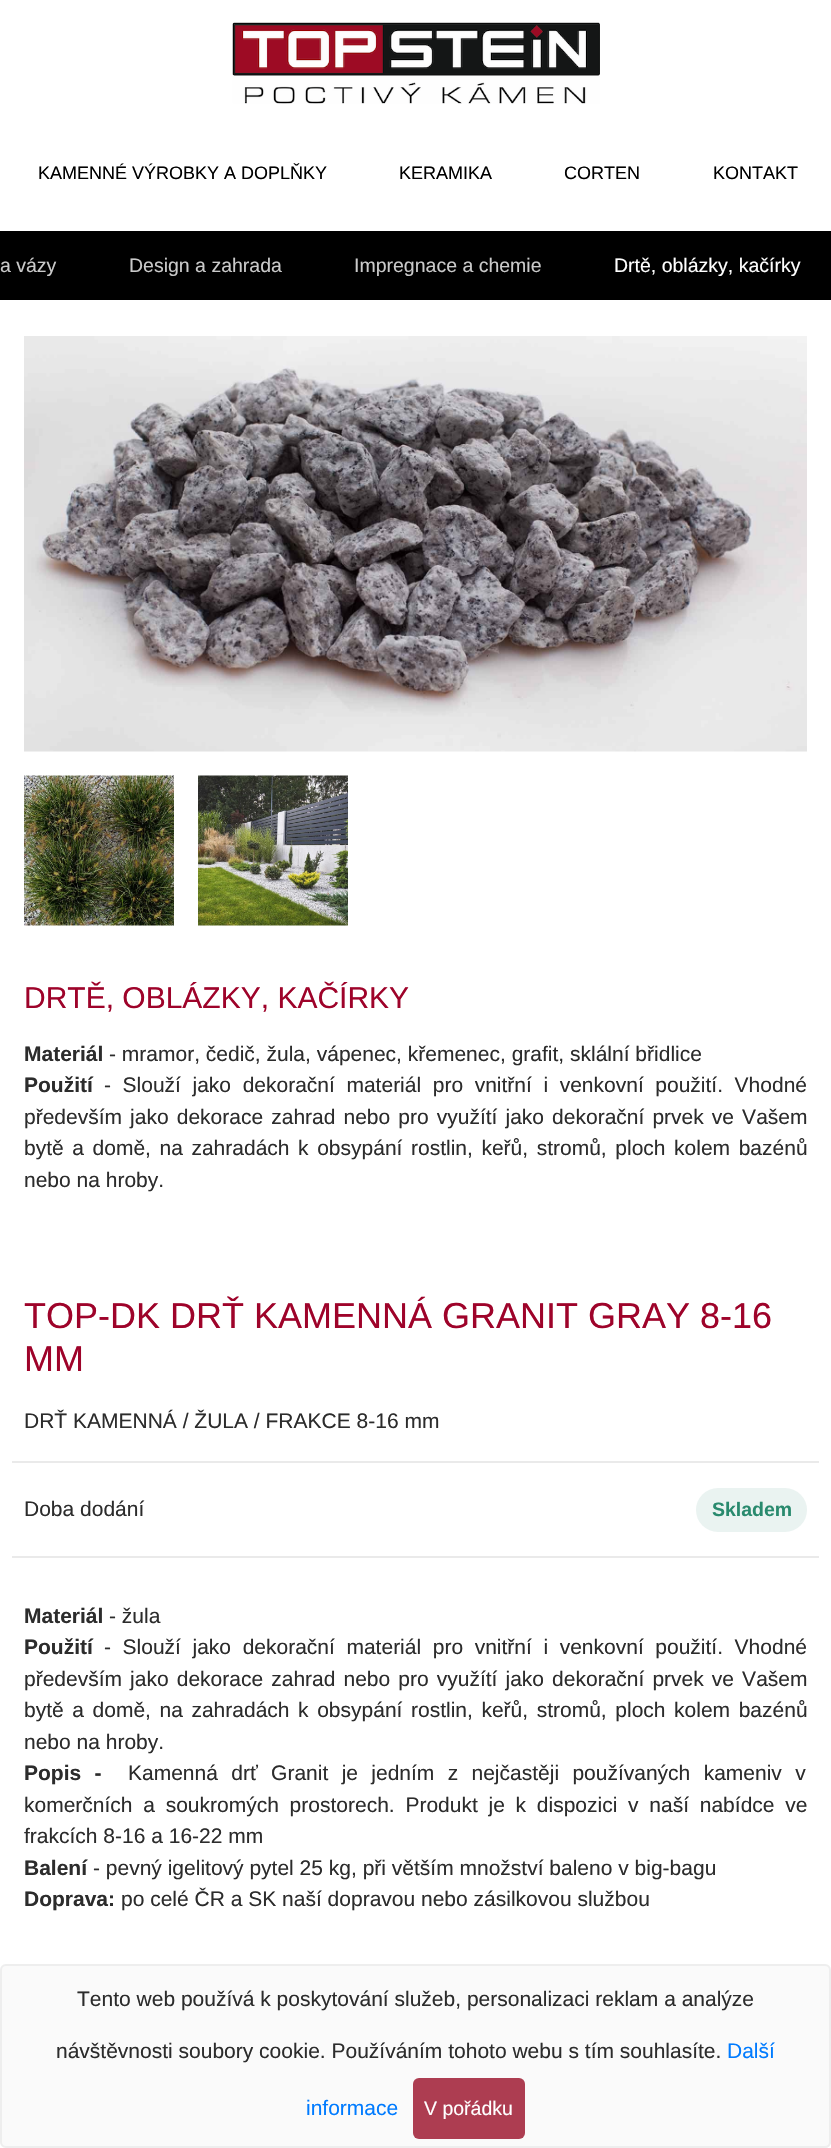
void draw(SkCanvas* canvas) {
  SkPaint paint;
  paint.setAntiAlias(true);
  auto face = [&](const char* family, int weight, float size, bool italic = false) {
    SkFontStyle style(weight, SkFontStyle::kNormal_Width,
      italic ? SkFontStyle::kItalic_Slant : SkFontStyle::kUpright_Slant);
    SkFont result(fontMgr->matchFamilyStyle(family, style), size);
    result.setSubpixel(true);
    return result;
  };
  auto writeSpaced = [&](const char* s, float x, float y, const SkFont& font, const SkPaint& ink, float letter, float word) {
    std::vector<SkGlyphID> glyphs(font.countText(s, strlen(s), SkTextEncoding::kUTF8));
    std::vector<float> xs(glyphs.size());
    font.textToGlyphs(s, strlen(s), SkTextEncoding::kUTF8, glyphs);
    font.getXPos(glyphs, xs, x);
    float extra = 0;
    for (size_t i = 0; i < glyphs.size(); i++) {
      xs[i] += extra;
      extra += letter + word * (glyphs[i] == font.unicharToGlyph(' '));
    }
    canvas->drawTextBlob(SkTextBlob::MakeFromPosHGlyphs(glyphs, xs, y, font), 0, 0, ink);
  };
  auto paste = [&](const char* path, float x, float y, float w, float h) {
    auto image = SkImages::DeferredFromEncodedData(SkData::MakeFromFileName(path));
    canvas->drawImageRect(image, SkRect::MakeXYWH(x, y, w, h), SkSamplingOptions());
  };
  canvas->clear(0xffffffff);
  paste("img/1.png", 232, 22, 368, 82);
  paint.setColor(0xff000000);
  canvas->drawRect(SkRect::MakeXYWH(0, 231, 831, 69), paint);
  paste("img/2.png", 24, 336, 783, 416);
  paste("img/3.png", 24, 775, 150, 151);
  paste("img/4.png", 198, 775, 150, 151);
  paint.setColor(0xffeaeaea);
  canvas->drawRect(SkRect::MakeXYWH(12, 1461, 807, 2), paint);
  paint.setColor(0xffeaf3f1);
  canvas->drawRoundRect(SkRect::MakeXYWH(696, 1488, 111, 44), 22, 22, paint);
  paint.setColor(0xffeaeaea);
  canvas->drawRect(SkRect::MakeXYWH(12, 1556, 807, 2), paint);
  paint.setStroke(true);
  paint.setStrokeWidth(2);
  paint.setColor(0xffeeeeee);
  canvas->drawRoundRect(SkRect::MakeXYWH(493, 2077, 337, 70), 5, 5, paint);
  paint.setStroke(false);
  paint.setColor(0xfffafafa);
  canvas->drawRoundRect(SkRect::MakeXYWH(1, 1965, 829, 182), 5, 5, paint);
  paint.setStroke(true);
  paint.setColor(0xffeeeeee);
  canvas->drawRoundRect(SkRect::MakeXYWH(1, 1965, 829, 182), 5, 5, paint);
  paint.setStroke(false);
  paint.setColor(0xffad3d51);
  canvas->drawRoundRect(SkRect::MakeXYWH(413, 2078, 112, 61), 6, 6, paint);
  auto f0 = face("Liberation Sans", 400, 18);
  paint.setColor(0xff000000);
  {
    const struct { const char* s; float x, y; } items[] = {
      {"KAMENNÉ VÝROBKY A DOPLŇKY", 38, 179},
      {"KERAMIKA", 399, 179},
      {"CORTEN", 564, 179},
      {"KONTAKT", 713, 179},
    };
    for (auto [s, x, y] : items) {
      canvas->drawString(s, x, y, f0, paint);
    }
  }
  auto f1 = face("Liberation Sans", 400, 19.5f);
  paint.setColor(0xffcacaca);
  {
    const struct { const char* s; float x, y; } items[] = {
      {"a vázy", 0, 272},
      {"Design a zahrada", 129, 272},
      {"Impregnace a chemie", 354, 272},
    };
    for (auto [s, x, y] : items) {
      canvas->drawString(s, x, y, f1, paint);
    }
  }
  paint.setColor(0xffffffff);
  canvas->drawString("Drtě, oblázky, kačírky", 614, 272, f1, paint);
  auto f2 = face("Liberation Sans", 400, 30);
  paint.setColor(0xff9e032a);
  canvas->drawString("DRTĚ, OBLÁZKY, KAČÍRKY", 24, 1008, f2, paint);
  auto f3 = face("Liberation Sans", 700, 21);
  paint.setColor(0xff2c2c2c);
  canvas->drawString("Materiál", 24, 1061, f3, paint);
  auto f4 = face("Liberation Sans", 400, 21);
  canvas->drawString("- mramor, čedič, žula, vápenec, křemenec, grafit, sklální břidlice", 109, 1061, f4, paint);
  canvas->drawString("Použití", 24, 1092, f3, paint);
  writeSpaced("- Slouží jako dekorační materiál pro vnitřní i venkovní použití. Vhodné", 104, 1092, f4, paint, 0, 5.75f);
  writeSpaced("především jako dekorace zahrad nebo pro využítí jako dekorační prvek ve Vašem", 24, 1124, f4, paint, 0, 2.25f);
  writeSpaced("bytě a domě, na zahradách k obsypání rostlin, keřů, stromů, ploch kolem bazénů", 24, 1155, f4, paint, 0, 2.75f);
  canvas->drawString("nebo na hroby.", 24, 1187, f4, paint);
  auto f5 = face("Liberation Sans", 400, 36);
  paint.setColor(0xff9e032a);
  canvas->drawString("TOP-DK DRŤ KAMENNÁ GRANIT GRAY 8-16", 24, 1328, f5, paint);
  canvas->drawString("MM", 24, 1371, f5, paint);
  paint.setColor(0xff2c2c2c);
  canvas->drawString("DRŤ KAMENNÁ / ŽULA / FRAKCE 8-16 mm", 24, 1428, f4, paint);
  canvas->drawString("Doba dodání", 24, 1516, f4, paint);
  auto f6 = face("Liberation Sans", 700, 19.5f);
  paint.setColor(0xff298a6e);
  canvas->drawString("Skladem", 712, 1516, f6, paint);
  paint.setColor(0xff2c2c2c);
  canvas->drawString("Materiál", 24, 1623, f3, paint);
  canvas->drawString("- žula", 109, 1623, f4, paint);
  canvas->drawString("Použití", 24, 1654, f3, paint);
  writeSpaced("- Slouží jako dekorační materiál pro vnitřní i venkovní použití. Vhodné", 104, 1654, f4, paint, 0, 5.75f);
  writeSpaced("především jako dekorace zahrad nebo pro využítí jako dekorační prvek ve Vašem", 24, 1686, f4, paint, 0, 2.25f);
  writeSpaced("bytě a domě, na zahradách k obsypání rostlin, keřů, stromů, ploch kolem bazénů", 24, 1717, f4, paint, 0, 2.75f);
  canvas->drawString("nebo na hroby.", 24, 1749, f4, paint);
  writeSpaced("Popis -", 24, 1780, f3, paint, 0, 7.5f);
  writeSpaced("Kamenná drť Granit je jedním z nejčastěji používaných kameniv v", 128, 1780, f4, paint, 0, 7.5f);
  writeSpaced("komerčních a soukromých prostorech. Produkt je k dispozici v naší nabídce ve", 24, 1812, f4, paint, 0, 4.9f);
  canvas->drawString("frakcích 8-16 a 16-22 mm", 24, 1843, f4, paint);
  canvas->drawString("Balení", 24, 1875, f3, paint);
  canvas->drawString("- pevný igelitový pytel 25 kg, při větším množství baleno v big-bagu", 93, 1875, f4, paint);
  canvas->drawString("Doprava:", 24, 1906, f3, paint);
  {
    const struct { const char* s; float x, y; } items[] = {
      {"po celé ČR a SK naší dopravou nebo zásilkovou službou", 121, 1906},
      {"Tento web používá k poskytování služeb, personalizaci reklam a analýze", 77, 2006},
      {"návštěvnosti soubory cookie. Používáním tohoto webu s tím souhlasíte.", 56, 2058},
    };
    for (auto [s, x, y] : items) {
      canvas->drawString(s, x, y, f4, paint);
    }
  }
  paint.setColor(0xff007bff);
  canvas->drawString("Další", 727, 2058, f4, paint);
  canvas->drawString("informace", 306, 2115, f4, paint);
  paint.setColor(0xffffffff);
  canvas->drawString("V pořádku", 424, 2115, f1, paint);
}
